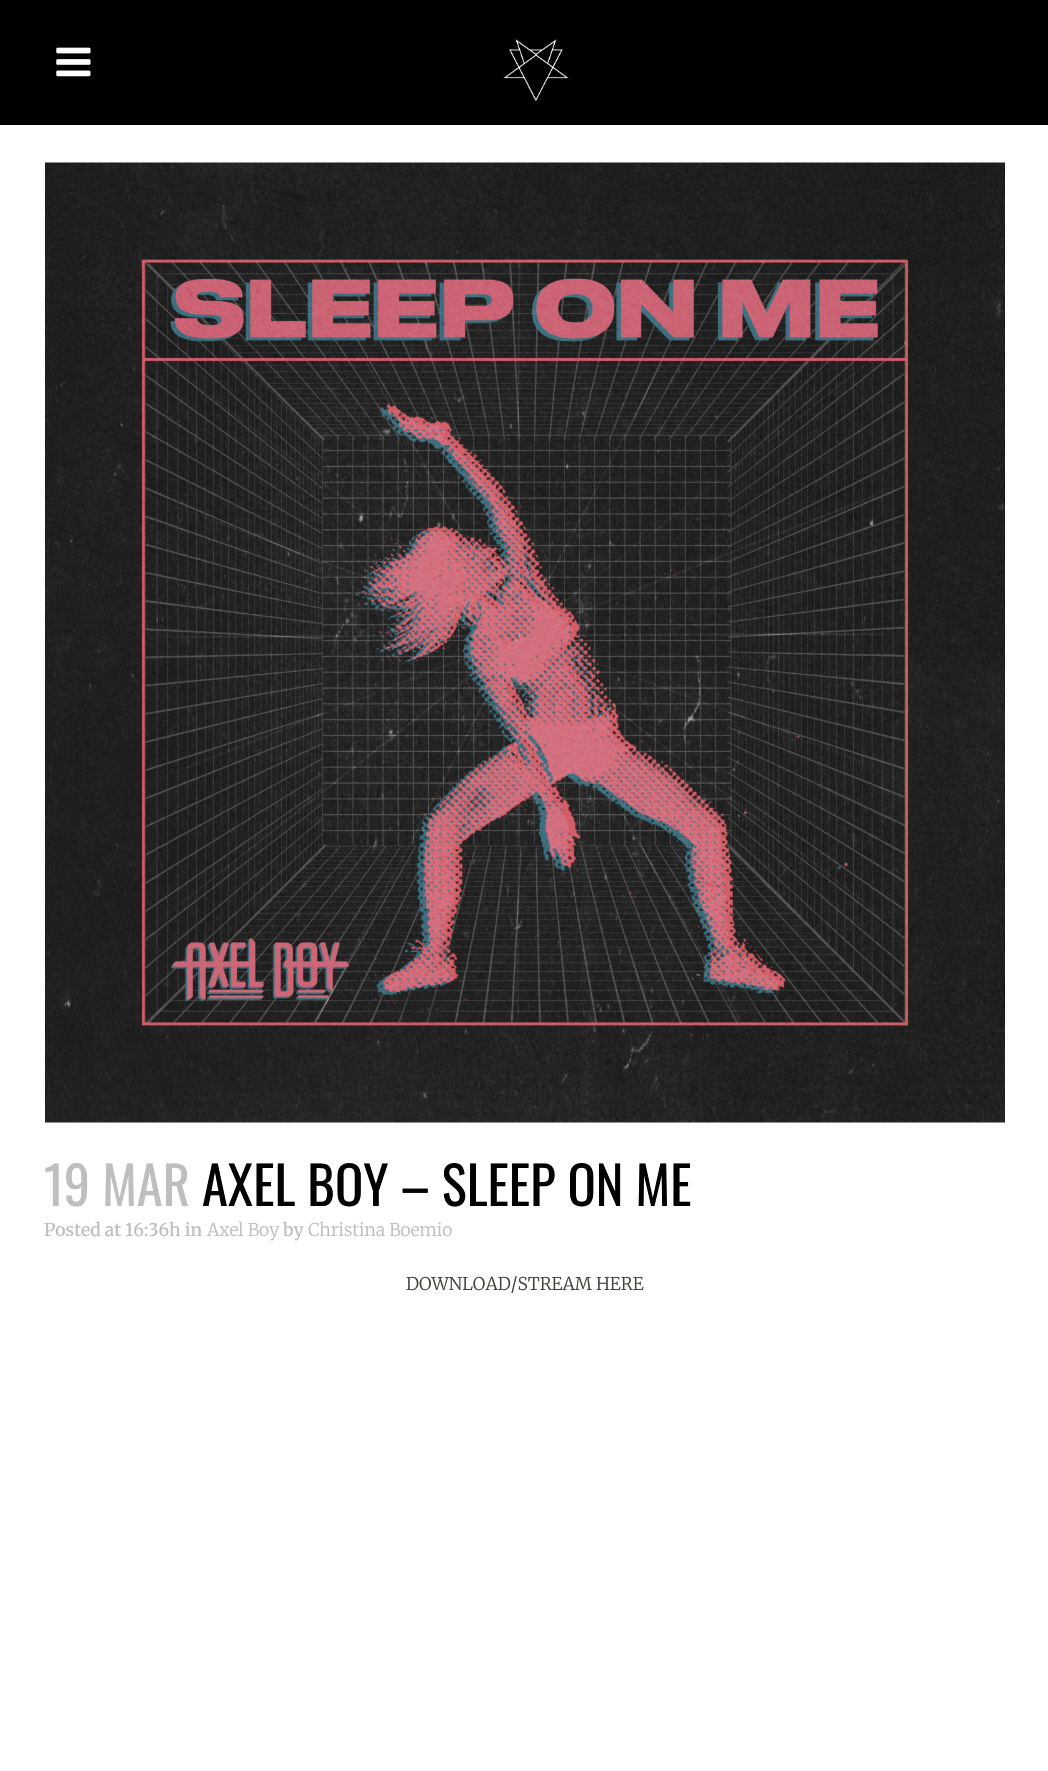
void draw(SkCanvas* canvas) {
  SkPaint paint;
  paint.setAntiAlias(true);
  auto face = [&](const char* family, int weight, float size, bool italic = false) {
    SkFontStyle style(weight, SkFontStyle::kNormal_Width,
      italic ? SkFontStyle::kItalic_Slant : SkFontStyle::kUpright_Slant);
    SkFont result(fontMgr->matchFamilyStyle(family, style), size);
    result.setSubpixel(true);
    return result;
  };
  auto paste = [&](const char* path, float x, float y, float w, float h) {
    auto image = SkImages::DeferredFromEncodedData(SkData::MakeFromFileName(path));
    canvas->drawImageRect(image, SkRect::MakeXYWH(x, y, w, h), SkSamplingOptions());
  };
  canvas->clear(0xffffffff);
  paint.setColor(0xff000000);
  canvas->drawRect(SkRect::MakeXYWH(0, 0, 1048, 125), paint);
  paste("img/1.png", 56, 47, 35, 30);
  paste("img/2.png", 503, 39, 66, 63);
  paste("img/3.png", 45, 162, 960, 961);
  auto f0 = face("Oswald", 400, 52.5f);
  paint.setColor(0xffbebebe);
  canvas->drawString("19 MAR", 44, 1206, f0, paint);
  paint.setColor(0xff000000);
  canvas->drawString("AXEL BOY – SLEEP ON ME", 202, 1206, f0, paint);
  auto f1 = face("Merriweather", 500, 17.5f);
  paint.setColor(0xffbebebe);
  canvas->drawString("Posted at 16:36h in", 44, 1236, f1, paint);
  auto f2 = face("Merriweather", 300, 17.5f);
  canvas->drawString("Axel Boy", 207, 1236, f2, paint);
  canvas->drawString("by", 283, 1236, f1, paint);
  canvas->drawString("Christina Boemio", 308, 1236, f2, paint);
  paint.setColor(0xff444038);
  canvas->drawString("DOWNLOAD/STREAM HERE", 406, 1290, f2, paint);
}
